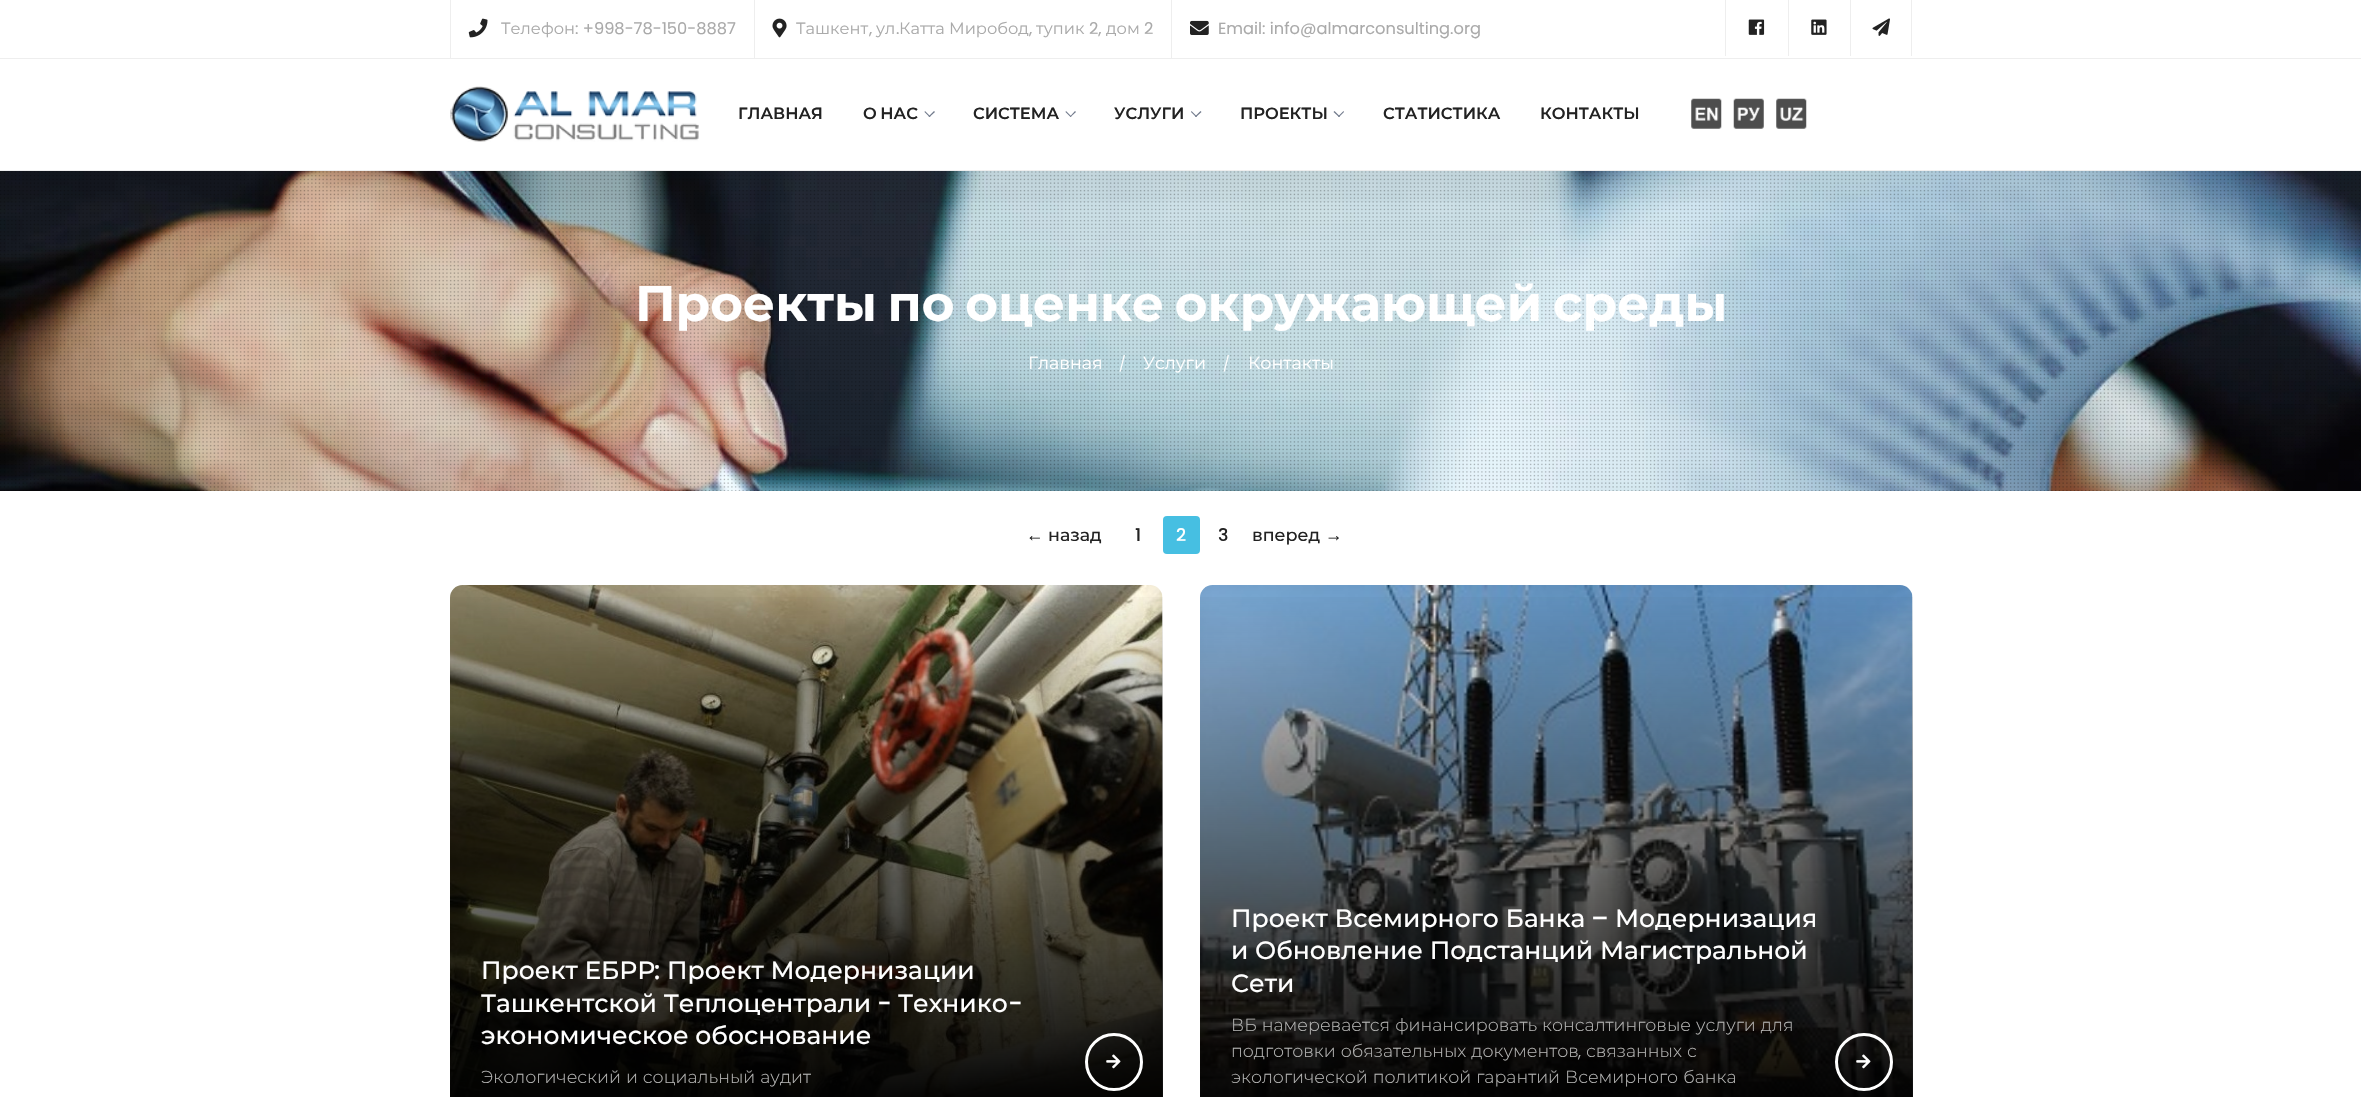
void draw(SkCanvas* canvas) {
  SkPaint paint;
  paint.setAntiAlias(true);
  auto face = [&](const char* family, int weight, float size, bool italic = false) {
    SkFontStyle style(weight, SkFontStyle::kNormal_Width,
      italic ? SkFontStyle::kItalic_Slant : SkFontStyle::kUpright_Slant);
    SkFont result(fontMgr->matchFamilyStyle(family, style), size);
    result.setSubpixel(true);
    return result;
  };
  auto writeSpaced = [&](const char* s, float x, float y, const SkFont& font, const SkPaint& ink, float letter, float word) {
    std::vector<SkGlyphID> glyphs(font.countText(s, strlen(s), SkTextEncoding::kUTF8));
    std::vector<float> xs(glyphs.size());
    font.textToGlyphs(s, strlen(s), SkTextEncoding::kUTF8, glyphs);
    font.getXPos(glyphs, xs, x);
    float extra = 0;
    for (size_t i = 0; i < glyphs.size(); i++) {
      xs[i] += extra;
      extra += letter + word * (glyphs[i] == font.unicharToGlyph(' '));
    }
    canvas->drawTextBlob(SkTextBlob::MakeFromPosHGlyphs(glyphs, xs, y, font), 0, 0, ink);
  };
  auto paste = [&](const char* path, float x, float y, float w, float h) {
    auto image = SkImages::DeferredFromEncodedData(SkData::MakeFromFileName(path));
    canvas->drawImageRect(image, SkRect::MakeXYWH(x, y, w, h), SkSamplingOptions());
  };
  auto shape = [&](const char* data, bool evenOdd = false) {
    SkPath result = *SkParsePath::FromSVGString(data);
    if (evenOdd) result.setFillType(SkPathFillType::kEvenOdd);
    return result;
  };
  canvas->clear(0xffffffff);
  paste("img/11.png", 0, 171, 2361, 320);
  paste("img/12.png", 0, 171, 2361, 320);
  canvas->save();
  canvas->clipRect(SkRect::MakeXYWH(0, 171, 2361, 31));
  paint.setColor(0x17000000);
  paint.setMaskFilter(SkMaskFilter::MakeBlur(kNormal_SkBlurStyle, 40.5f));
  canvas->drawRect(SkRect::MakeXYWH(0, 59, 2361, 112), paint);
  paint.setMaskFilter(nullptr);
  canvas->restore();
  {
    const struct { float x, y, w, h; SkColor color; } items[] = {
      {0, 10, 2361, 48, 0xffffffff},
      {0, 58, 2361, 1, 0xffeeeeee},
      {450, 0, 1, 58, 0xffeeeeee},
    };
    for (auto [x, y, w, h, color] : items) {
      paint.setColor(color);
      canvas->drawRect(SkRect::MakeXYWH(x, y, w, h), paint);
    }
  }
  paste("img/1.png", 468, 18, 20, 20);
  canvas->drawRect(SkRect::MakeXYWH(754, 0, 1, 58), paint);
  paste("img/2.png", 772, 18, 15, 20);
  canvas->drawRect(SkRect::MakeXYWH(1171, 0, 1, 58), paint);
  paste("img/3.png", 1190, 20, 19, 15);
  canvas->drawRect(SkRect::MakeXYWH(1725, 0, 1, 56), paint);
  paste("img/4.png", 1748, 19, 17, 16);
  canvas->drawRect(SkRect::MakeXYWH(1788, 0, 1, 56), paint);
  paste("img/5.png", 1811, 19, 16, 16);
  canvas->drawRect(SkRect::MakeXYWH(1911, 0, 1, 56), paint);
  canvas->drawRect(SkRect::MakeXYWH(1850, 0, 1, 56), paint);
  paste("img/6.png", 1872, 18, 18, 18);
  canvas->drawRect(SkRect::MakeXYWH(0, 170, 2361, 1), paint);
  paste("img/7.png", 450, 86, 249, 56);
  paint.setColor(0xff70798b);
  canvas->drawPath(shape("M934 111L935 112L929.5 117L928.5 116.5Z"), paint);
  canvas->drawPath(shape("M925 111L930.5 116.5L929.5 117L924.5 112Z"), paint);
  canvas->drawPath(shape("M1075 111L1076 112L1070.5 117L1070 116.5Z"), paint);
  canvas->drawPath(shape("M1066 111L1071.5 116.5L1070.5 117L1065.5 112Z"), paint);
  canvas->drawPath(shape("M1200.5 111L1201.5 112L1196 117L1195 116.5Z"), paint);
  canvas->drawPath(shape("M1191.5 111L1197 116.5L1196 117L1191 112Z"), paint);
  canvas->drawPath(shape("M1343.5 111L1344 112L1339 117L1338 116.5Z"), paint);
  canvas->drawPath(shape("M1334.5 111L1340 116.5L1339 117L1333.5 112Z"), paint);
  paste("img/8.png", 1691, 98, 31, 31);
  paste("img/9.png", 1733, 98, 31, 31);
  paste("img/10.png", 1776, 98, 31, 31);
  paint.setColor(0xff46bfe2);
  canvas->drawRoundRect(SkRect::MakeXYWH(1163, 516, 37, 38), 4, 4, paint);
  paste("img/13.png", 450, 585, 713, 512);
  {
    const SkColor colors[] = {0x00000000, 0xff000000};
    const float stops[] = {0, 1};
    const SkPoint ends[] = {{806, 585}, {806, 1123}};
    paint.setShader(SkGradientShader::MakeLinear(ends, colors, stops, 2, SkTileMode::kClamp));
    paint.setAlpha(255);
  }
  canvas->drawRect(SkRect::MakeXYWH(450, 597, 713, 500), paint);
  paint.setStroke(true);
  paint.setStrokeWidth(3);
  paint.setShader(nullptr);
  paint.setColor(0xffffffff);
  canvas->drawCircle(1114, 1062, 27.5f, paint);
  paste("img/14.png", 1106, 1054, 15, 15);
  paste("img/15.png", 1200, 585, 713, 512);
  paint.setStroke(false);
  {
    const SkColor colors[] = {0x00000000, 0xff000000};
    const float stops[] = {0, 1};
    const SkPoint ends[] = {{1556, 585}, {1556, 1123}};
    paint.setShader(SkGradientShader::MakeLinear(ends, colors, stops, 2, SkTileMode::kClamp));
    paint.setAlpha(255);
  }
  canvas->drawRect(SkRect::MakeXYWH(1200, 597, 713, 500), paint);
  paint.setStroke(true);
  paint.setShader(nullptr);
  paint.setColor(0xffffffff);
  canvas->drawCircle(1864, 1062, 27.5f, paint);
  paste("img/16.png", 1856, 1054, 15, 15);
  auto f0 = face("Montserrat", 400, 16.25f);
  paint.setStroke(false);
  paint.setColor(0xffaaaaaa);
  canvas->drawString("Телефон", 501, 34, f0, paint);
  auto f1 = face("Poppins", 400, 16.25f);
  canvas->drawString(": +998-78-150-8887", 575, 34, f1, paint);
  canvas->drawString("Ташкент", 796, 34, f0, paint);
  canvas->drawString(",", 869, 34, f1, paint);
  canvas->drawString("ул", 876, 34, f0, paint);
  canvas->drawString(".", 896, 34, f1, paint);
  canvas->drawString("Катта Миробод", 899, 34, f0, paint);
  canvas->drawString(",", 1029, 34, f1, paint);
  canvas->drawString("тупик", 1036, 34, f0, paint);
  canvas->drawString("2,", 1089, 34, f1, paint);
  canvas->drawString("дом", 1106, 34, f0, paint);
  canvas->drawString("2", 1144, 34, f1, paint);
  canvas->drawString("Email: info@almarconsulting.org", 1218, 34, f1, paint);
  auto f2 = face("Montserrat", 600, 16.25f);
  paint.setColor(0xff222222);
  canvas->drawString("ГЛАВНАЯ", 738, 119, f2, paint);
  writeSpaced("О НАС", 863, 119, f2, paint, 0, -1);
  {
    const struct { const char* s; float x, y; } items[] = {
      {"СИСТЕМА", 973, 119},
      {"УСЛУГИ", 1114, 119},
      {"ПРОЕКТЫ", 1240, 119},
      {"СТАТИСТИКА", 1383, 119},
      {"КОНТАКТЫ", 1540, 119},
    };
    for (auto [s, x, y] : items) {
      canvas->drawString(s, x, y, f2, paint);
    }
  }
  auto f3 = face("Montserrat", 700, 50);
  paint.setColor(0xffffffff);
  writeSpaced("Проекты по оценке окружающей среды", 635, 321, f3, paint, 0, -3.5f);
  auto f4 = face("Montserrat", 400, 17.5f);
  canvas->drawString("Главная", 1028, 369, f4, paint);
  auto f5 = face("Poppins", 300, 15);
  canvas->drawString("/", 1119, 369, f5, paint);
  canvas->drawString("Услуги", 1143, 369, f4, paint);
  canvas->drawString("/", 1223, 369, f5, paint);
  canvas->drawString("Контакты", 1248, 369, f4, paint);
  auto f6 = face("Liberation Sans", 400, 17.5f);
  paint.setColor(0xff222222);
  canvas->drawString("←", 1026, 541, f6, paint);
  auto f7 = face("Montserrat", 500, 17.5f);
  canvas->drawString("назад", 1048, 541, f7, paint);
  auto f8 = face("Poppins", 500, 17.5f);
  canvas->drawString("1", 1135, 541, f8, paint);
  paint.setColor(0xffffffff);
  canvas->drawString("2", 1176, 541, f8, paint);
  paint.setColor(0xff222222);
  canvas->drawString("3", 1218, 541, f8, paint);
  canvas->drawString("вперед", 1252, 541, f7, paint);
  canvas->drawString("→", 1325, 541, f6, paint);
  auto f9 = face("Montserrat", 500, 25);
  paint.setColor(0xffffffff);
  canvas->drawString("Проект ЕБРР", 481, 979, f9, paint);
  auto f10 = face("Poppins", 500, 25);
  canvas->drawString(":", 654, 979, f10, paint);
  canvas->drawString("Проект Модернизации", 667, 979, f9, paint);
  canvas->drawString("Ташкентской Теплоцентрали", 481, 1012, f9, paint);
  canvas->drawString("-", 877, 1012, f10, paint);
  canvas->drawString("Технико", 898, 1012, f9, paint);
  canvas->drawString("-", 1008, 1012, f10, paint);
  canvas->drawString("экономическое обоснование", 481, 1044, f9, paint);
  auto f11 = face("Montserrat", 300, 17.5f);
  paint.setColor(0xffb4b4b3);
  writeSpaced("Экологический и социальный аудит", 481, 1083, f11, paint, 0, 0.5f);
  paint.setColor(0xffffffff);
  canvas->drawString("Проект Всемирного Банка", 1231, 927, f9, paint);
  canvas->drawString("–", 1591, 927, f10, paint);
  {
    const struct { const char* s; float x, y; } items[] = {
      {"Модернизация", 1615, 927},
      {"и Обновление Подстанций Магистральной", 1231, 959},
      {"Сети", 1231, 992},
    };
    for (auto [s, x, y] : items) {
      canvas->drawString(s, x, y, f9, paint);
    }
  }
  paint.setColor(0xffb4b4b3);
  writeSpaced("ВБ намеревается финансировать консалтинговые услуги для", 1231, 1031, f11, paint, 0, 0.5f);
  writeSpaced("подготовки обязательных документов", 1231, 1057, f11, paint, 0, 0.5f);
  auto f12 = face("Poppins", 300, 17.5f);
  canvas->drawString(",", 1578, 1057, f12, paint);
  writeSpaced("связанных с", 1586, 1057, f11, paint, 0, 0.5f);
  writeSpaced("экологической политикой гарантий Всемирного банка", 1231, 1083, f11, paint, 0, 0.5f);
}
